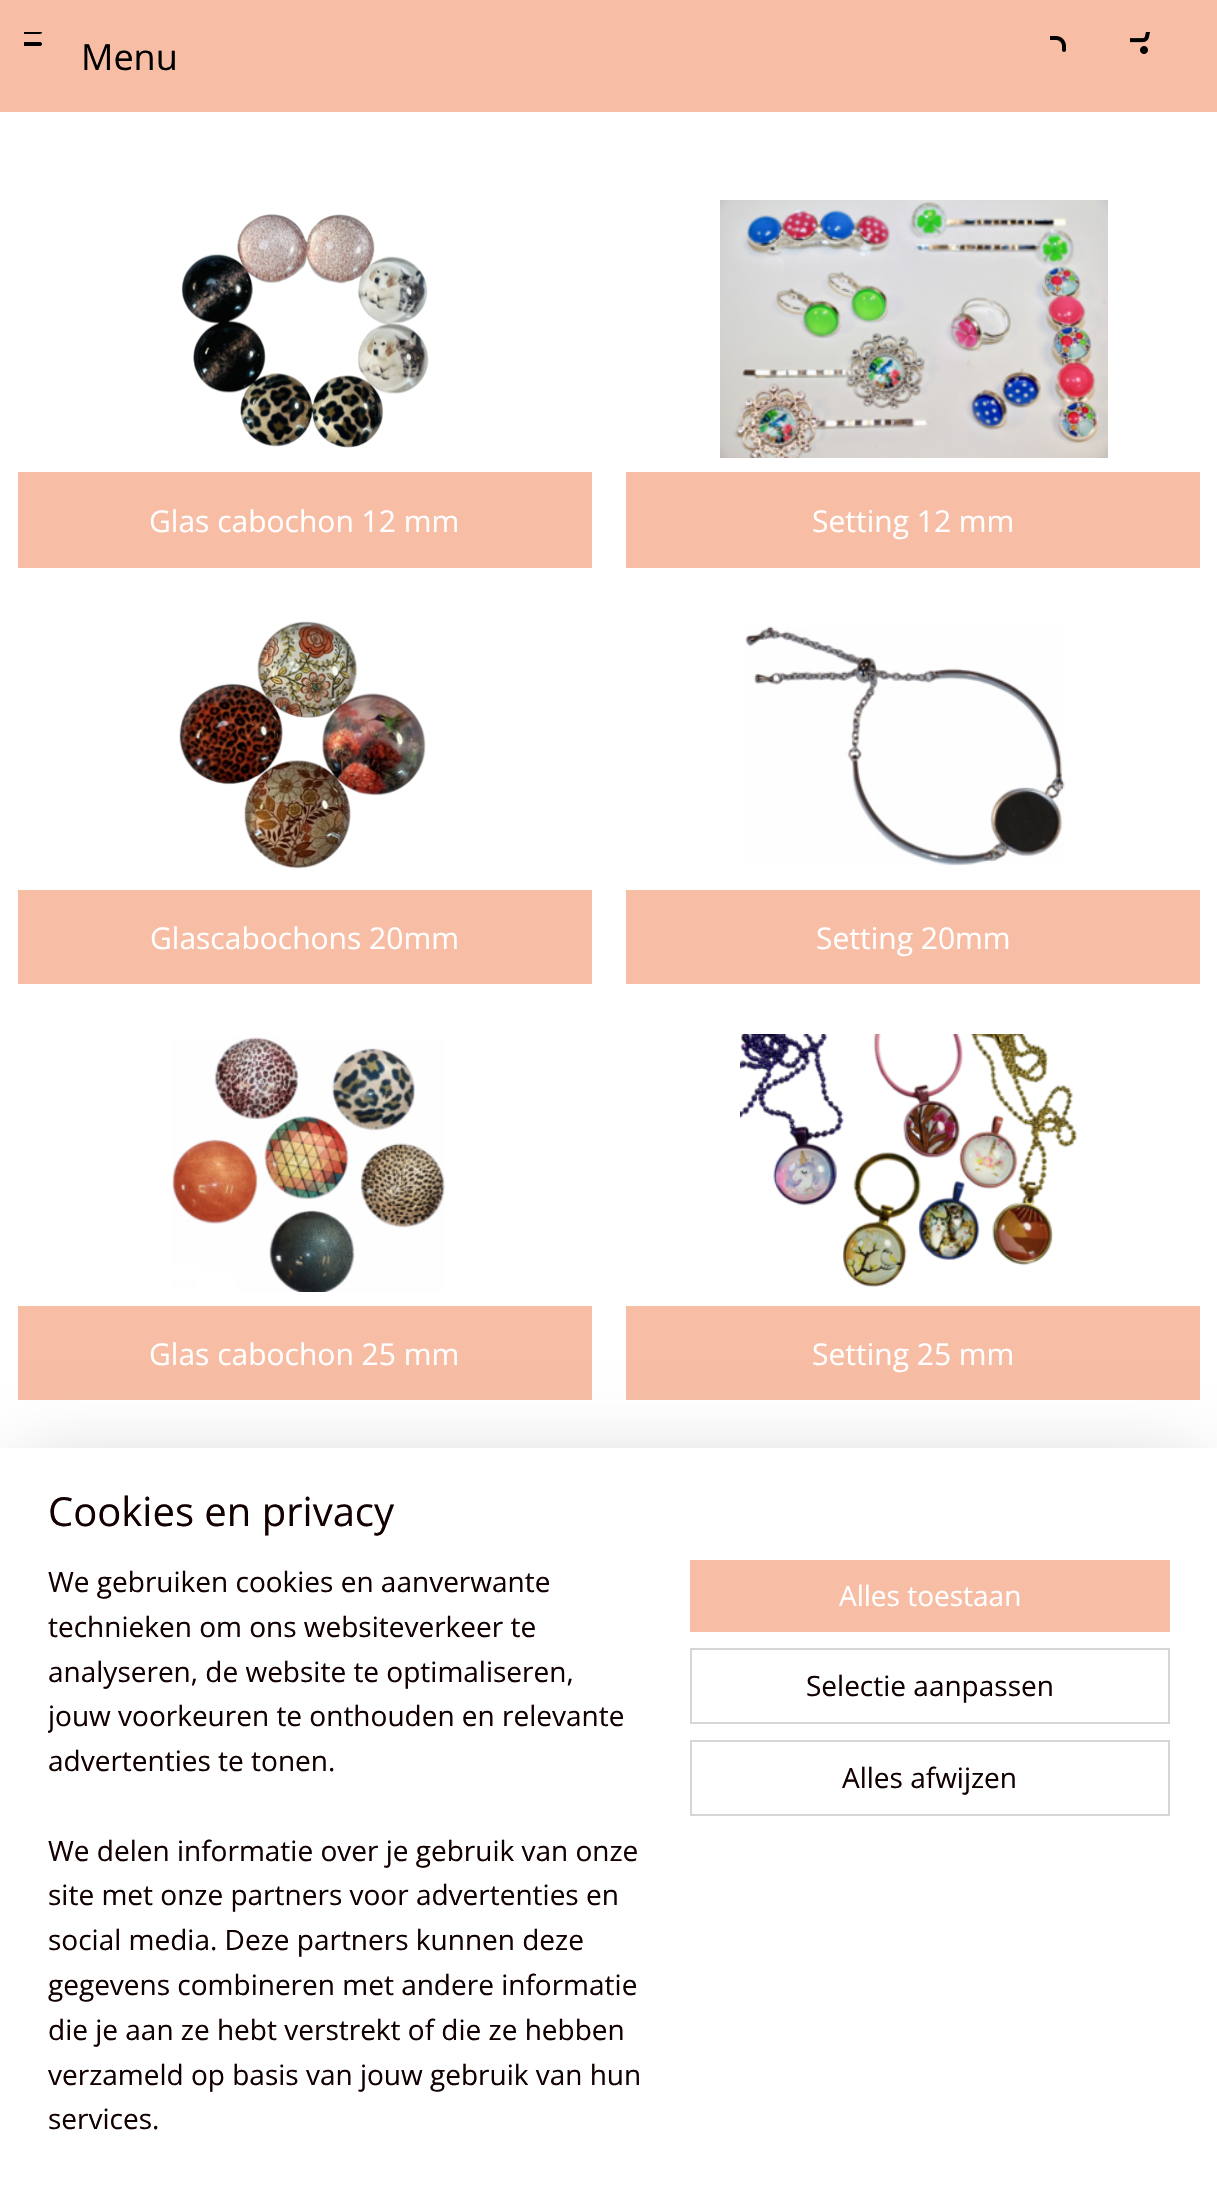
void draw(SkCanvas* canvas) {
  SkPaint paint;
  paint.setAntiAlias(true);
  auto face = [&](const char* family, int weight, float size, bool italic = false) {
    SkFontStyle style(weight, SkFontStyle::kNormal_Width,
      italic ? SkFontStyle::kItalic_Slant : SkFontStyle::kUpright_Slant);
    SkFont result(fontMgr->matchFamilyStyle(family, style), size);
    result.setSubpixel(true);
    return result;
  };
  auto paste = [&](const char* path, float x, float y, float w, float h) {
    auto image = SkImages::DeferredFromEncodedData(SkData::MakeFromFileName(path));
    canvas->drawImageRect(image, SkRect::MakeXYWH(x, y, w, h), SkSamplingOptions());
  };
  canvas->clear(0xffffffff);
  paint.setColor(0xfff7bea5);
  canvas->drawRect(SkRect::MakeXYWH(0, 0, 1217, 112), paint);
  paste("img/1.png", 24, 32, 18, 14);
  paste("img/2.png", 1050, 36, 16, 16);
  paste("img/3.png", 1130, 32, 20, 22);
  paste("img/4.png", 181, 214, 248, 234);
  canvas->drawRect(SkRect::MakeXYWH(18, 472, 574, 96), paint);
  paste("img/5.png", 720, 200, 388, 258);
  canvas->drawRect(SkRect::MakeXYWH(626, 472, 574, 96), paint);
  paste("img/6.png", 179, 621, 247, 248);
  canvas->drawRect(SkRect::MakeXYWH(18, 890, 574, 94), paint);
  paste("img/7.png", 745, 626, 320, 240);
  canvas->drawRect(SkRect::MakeXYWH(626, 890, 574, 94), paint);
  paste("img/8.png", 172, 1037, 273, 255);
  canvas->drawRect(SkRect::MakeXYWH(18, 1306, 574, 94), paint);
  paste("img/9.png", 740, 1034, 338, 253);
  canvas->drawRect(SkRect::MakeXYWH(626, 1306, 574, 94), paint);
  paint.setColor(0x33000000);
  paint.setMaskFilter(SkMaskFilter::MakeBlur(kNormal_SkBlurStyle, 36));
  canvas->drawRect(SkRect::MakeXYWH(20, 1468, 1178, 702), paint);
  paint.setMaskFilter(nullptr);
  paint.setColor(0xffffffff);
  canvas->drawRect(SkRect::MakeXYWH(0, 1448, 1217, 741), paint);
  paint.setColor(0xfff7bea5);
  canvas->drawRect(SkRect::MakeXYWH(690, 1560, 480, 72), paint);
  paint.setStroke(true);
  paint.setStrokeWidth(2);
  paint.setColor(0xffd6d6d6);
  canvas->drawRect(SkRect::MakeXYWH(691, 1649, 478, 74), paint);
  canvas->drawRect(SkRect::MakeXYWH(691, 1741, 478, 74), paint);
  auto f0 = face("Open Sans", 400, 36);
  paint.setStroke(false);
  paint.setColor(0xff000000);
  canvas->drawString("Menu", 81, 70, f0, paint);
  auto f1 = face("Open Sans", 400, 30);
  paint.setColor(0xffffffff);
  {
    const struct { const char* s; float x, y; } items[] = {
      {"Glas cabochon 12 mm", 149, 532},
      {"Setting 12 mm", 812, 532},
      {"Glascabochons 20mm", 150, 949},
      {"Setting 20mm", 816, 949},
      {"Glas cabochon 25 mm", 149, 1365},
      {"Setting 25 mm", 812, 1365},
    };
    for (auto [s, x, y] : items) {
      canvas->drawString(s, x, y, f1, paint);
    }
  }
  auto f2 = face("Open Sans", 400, 40);
  paint.setColor(0xff120000);
  canvas->drawString("Cookies en privacy", 48, 1526, f2, paint);
  auto f3 = face("Open Sans", 400, 28);
  {
    const struct { const char* s; float x, y; } items[] = {
      {"We gebruiken cookies en aanverwante", 48, 1592},
      {"technieken om ons websiteverkeer te", 48, 1637},
      {"analyseren, de website te optimaliseren,", 48, 1682},
    };
    for (auto [s, x, y] : items) {
      canvas->drawString(s, x, y, f3, paint);
    }
  }
  canvas->save();
  canvas->clipRect(SkRect::MakeXYWH(48, 1560, 594, 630));
  canvas->drawString("jouw voorkeuren te onthouden en relevante", 48, 1726, f3, paint);
  canvas->restore();
  {
    const struct { const char* s; float x, y; } items[] = {
      {"advertenties te tonen.", 48, 1771},
      {"We delen informatie over je gebruik van onze", 48, 1861},
      {"site met onze partners voor advertenties en", 48, 1905},
      {"social media. Deze partners kunnen deze", 48, 1950},
      {"gegevens combineren met andere informatie", 48, 1995},
      {"die je aan ze hebt verstrekt of die ze hebben", 48, 2040},
      {"verzameld op basis van jouw gebruik van hun", 48, 2085},
      {"services.", 48, 2129},
    };
    for (auto [s, x, y] : items) {
      canvas->drawString(s, x, y, f3, paint);
    }
  }
  paint.setColor(0xffffffff);
  canvas->drawString("Alles toestaan", 839, 1606, f3, paint);
  paint.setColor(0xff120000);
  canvas->drawString("Selectie aanpassen", 806, 1696, f3, paint);
  canvas->drawString("Alles afwijzen", 842, 1788, f3, paint);
}
